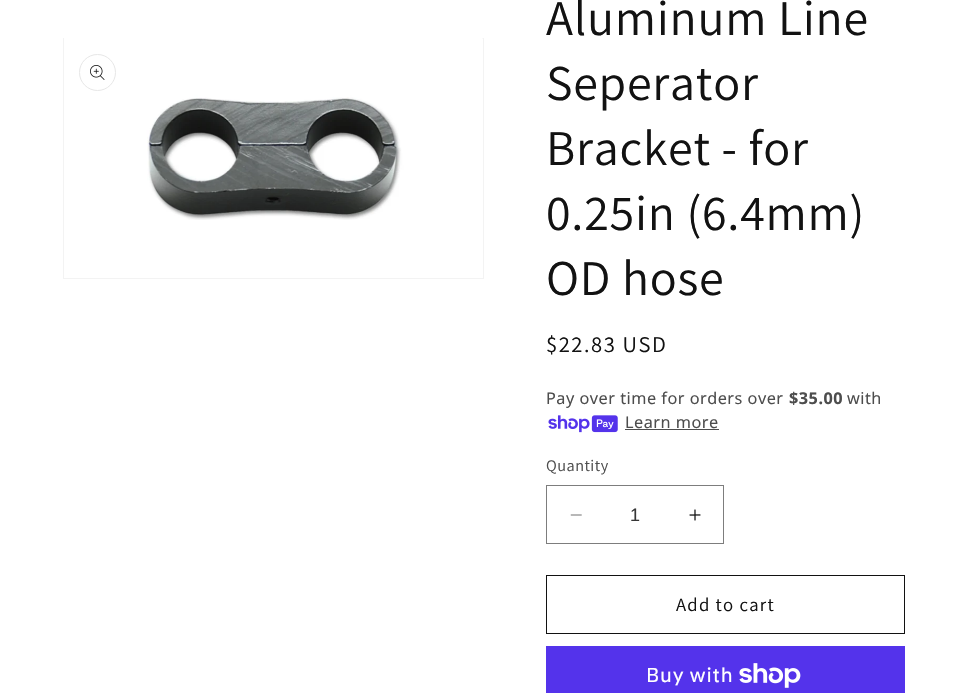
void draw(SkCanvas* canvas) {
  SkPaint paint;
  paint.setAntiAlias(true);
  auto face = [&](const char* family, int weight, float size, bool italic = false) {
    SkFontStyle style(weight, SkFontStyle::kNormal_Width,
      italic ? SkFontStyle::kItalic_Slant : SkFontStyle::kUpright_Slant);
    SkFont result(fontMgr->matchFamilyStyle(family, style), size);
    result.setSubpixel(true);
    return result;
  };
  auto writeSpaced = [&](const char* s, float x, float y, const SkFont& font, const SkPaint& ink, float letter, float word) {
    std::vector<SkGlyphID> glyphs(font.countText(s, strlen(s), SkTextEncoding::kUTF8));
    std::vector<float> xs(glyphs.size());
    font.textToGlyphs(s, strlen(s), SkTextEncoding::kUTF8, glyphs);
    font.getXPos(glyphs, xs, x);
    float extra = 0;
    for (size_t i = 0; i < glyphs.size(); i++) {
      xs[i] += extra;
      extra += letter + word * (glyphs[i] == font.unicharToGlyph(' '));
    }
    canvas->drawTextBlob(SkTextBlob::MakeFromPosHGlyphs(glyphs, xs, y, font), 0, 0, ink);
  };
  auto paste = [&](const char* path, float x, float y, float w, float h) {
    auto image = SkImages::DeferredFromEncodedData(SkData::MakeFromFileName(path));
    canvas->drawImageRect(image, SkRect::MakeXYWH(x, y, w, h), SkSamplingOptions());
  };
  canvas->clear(0xffffffff);
  paint.setStroke(true);
  paint.setStrokeWidth(1);
  paint.setColor(0xfff3f3f3);
  canvas->drawRect(SkRect::MakeXYWH(63.5f, 38.5f, 420, 240), paint);
  paste("img/1.png", 64, 38, 419, 182);
  paint.setColor(0xffe7e7e7);
  canvas->drawCircle(97.5f, 72.5f, 18, paint);
  paste("img/2.png", 90, 65, 15, 15);
  paste("img/3.png", 548, 415, 70, 18);
  paint.setStroke(false);
  paint.setColor(0xff4d4d4d);
  canvas->drawRect(SkRect::MakeXYWH(625, 429, 94, 1), paint);
  paste("img/4.png", 570, 514, 12, 2);
  paste("img/5.png", 689, 509, 12, 12);
  paint.setStroke(true);
  paint.setColor(0xff7d7d7d);
  canvas->drawRect(SkRect::MakeXYWH(546.5f, 485.5f, 177, 58), paint);
  paint.setColor(0xff121212);
  canvas->drawRect(SkRect::MakeXYWH(546.5f, 575.5f, 358, 58), paint);
  paint.setStroke(false);
  paint.setColor(0xff5433eb);
  canvas->drawRect(SkRect::MakeXYWH(546, 646, 359, 47), paint);
  paste("img/6.png", 739, 663, 62, 25);
  auto f0 = face("Assistant", 400, 50);
  paint.setColor(0xff121212);
  {
    const struct { const char* s; float x, y; } items[] = {
      {"Aluminum Line", 546, 35},
      {"Seperator", 546, 100},
      {"Bracket - for", 546, 165},
      {"0.25in (6.4mm)", 546, 230},
      {"OD hose", 546, 295},
    };
    for (auto [s, x, y] : items) {
      writeSpaced(s, x, y, f0, paint, 0.75f, 0);
    }
  }
  auto f1 = face("Assistant", 400, 22.5f);
  writeSpaced("$22.83 USD", 546, 352, f1, paint, 1.6f, 0);
  auto f2 = face("Noto Sans", 400, 16.25f);
  paint.setColor(0xff4d4d4d);
  writeSpaced("Pay over time for orders over", 546, 404, f2, paint, 0.5f, 0);
  auto f3 = face("Noto Sans", 700, 16.25f);
  writeSpaced("$35.00", 789, 404, f3, paint, 0.5f, 0);
  writeSpaced("with", 847, 404, f2, paint, 0.5f, 0);
  writeSpaced("Learn more", 625, 428, f2, paint, 0.5f, 0);
  auto f4 = face("Assistant", 400, 16.25f);
  writeSpaced("Quantity", 546, 471, f4, paint, 0.5f, 0);
  auto f5 = face("Liberation Sans", 400, 18);
  paint.setColor(0xff363636);
  canvas->drawString("1", 630, 521, f5, paint);
  auto f6 = face("Assistant", 400, 18.75f);
  paint.setColor(0xff121212);
  writeSpaced("Add to cart", 676, 611, f6, paint, 1.25f, 0);
  auto f7 = face("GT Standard", 400, 20);
  paint.setColor(0xffffffff);
  writeSpaced("Buy with", 646, 682, f7, paint, 0.75f, 0);
}
